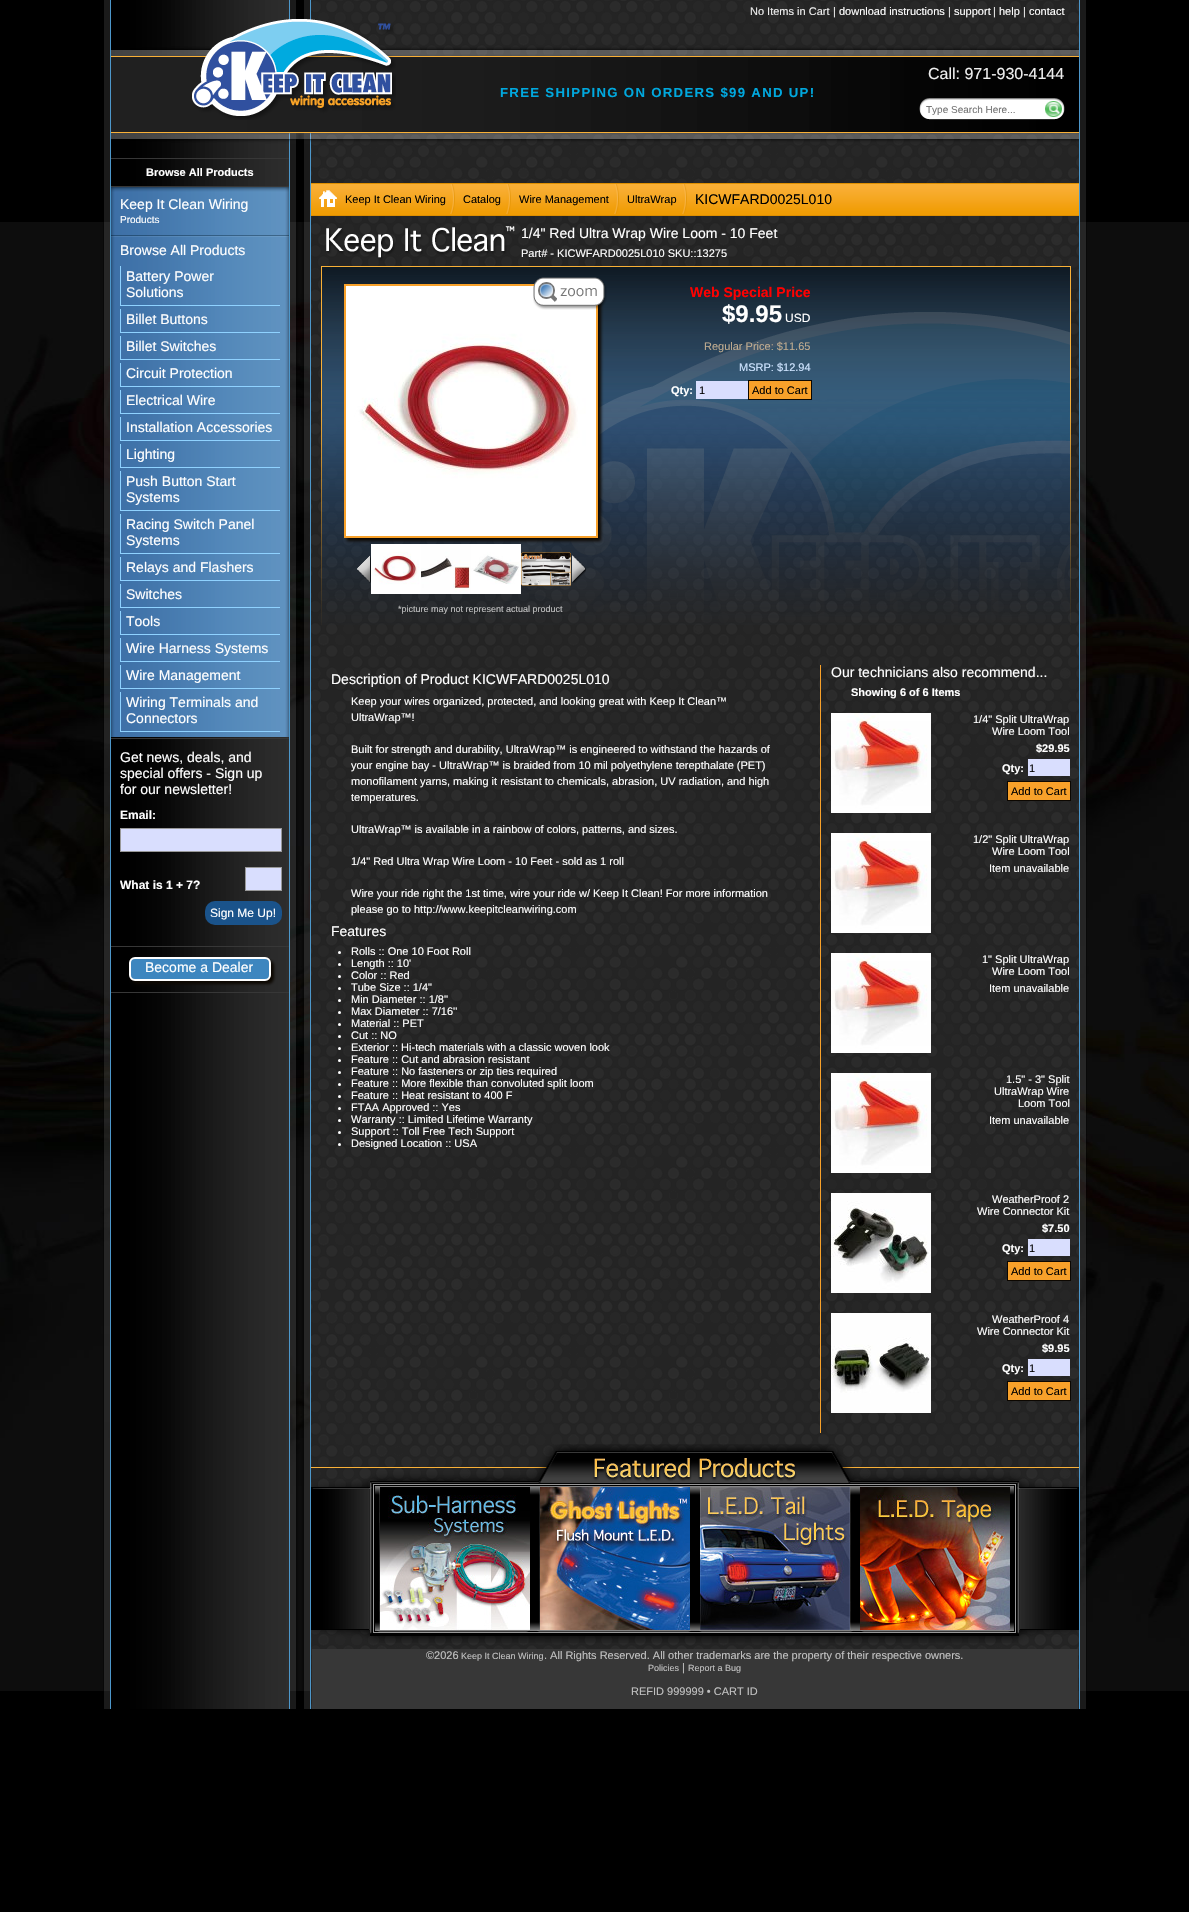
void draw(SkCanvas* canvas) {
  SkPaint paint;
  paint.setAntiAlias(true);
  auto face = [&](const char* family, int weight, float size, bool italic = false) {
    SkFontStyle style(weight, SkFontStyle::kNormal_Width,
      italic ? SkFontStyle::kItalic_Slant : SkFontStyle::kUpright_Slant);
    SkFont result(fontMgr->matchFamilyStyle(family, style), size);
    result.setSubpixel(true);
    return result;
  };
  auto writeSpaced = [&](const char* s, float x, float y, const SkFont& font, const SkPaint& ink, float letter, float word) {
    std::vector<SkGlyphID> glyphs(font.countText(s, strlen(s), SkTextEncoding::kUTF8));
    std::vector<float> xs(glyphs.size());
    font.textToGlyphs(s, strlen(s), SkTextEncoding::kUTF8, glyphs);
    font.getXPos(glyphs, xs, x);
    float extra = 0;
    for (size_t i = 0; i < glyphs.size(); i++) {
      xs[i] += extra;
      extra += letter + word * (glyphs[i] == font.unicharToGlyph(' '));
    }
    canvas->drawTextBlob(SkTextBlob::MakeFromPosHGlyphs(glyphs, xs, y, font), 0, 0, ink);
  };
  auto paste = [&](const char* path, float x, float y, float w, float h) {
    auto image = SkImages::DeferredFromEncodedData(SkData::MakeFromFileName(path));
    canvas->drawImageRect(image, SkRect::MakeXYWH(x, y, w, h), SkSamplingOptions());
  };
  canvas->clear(0xff000000);
  paste("img/1.png", 0, 222, 1189, 1469);
  paste("img/2.png", 104, 0, 982, 157);
  paste("img/3.png", 192, 19, 204, 101);
  paste("img/4.png", 919, 98, 146, 22);
  paste("img/5.png", 1045, 101, 17, 16);
  paste("img/6.png", 103, 157, 984, 1552);
  paint.setColor(0xff373737);
  canvas->drawRect(SkRect::MakeXYWH(111, 158, 178, 1), paint);
  canvas->drawRect(SkRect::MakeXYWH(111, 186, 178, 1), paint);
  paste("img/7.png", 111, 187, 178, 50);
  paste("img/8.png", 111, 237, 178, 500);
  {
    const struct { float x, y, w, h; SkColor color; } items[] = {
      {120, 305, 160, 1, 0xff8fd2ff},
      {120, 266, 1, 40, 0xff8fd2ff},
      {120, 332, 160, 1, 0xff8fd2ff},
      {120, 309, 1, 24, 0xff8fd2ff},
      {120, 359, 160, 1, 0xff8fd2ff},
      {120, 336, 1, 24, 0xff8fd2ff},
      {120, 386, 160, 1, 0xff8fd2ff},
      {120, 363, 1, 24, 0xff8fd2ff},
      {120, 413, 160, 1, 0xff8fd2ff},
      {120, 390, 1, 24, 0xff8fd2ff},
      {120, 440, 160, 1, 0xff8fd2ff},
      {120, 417, 1, 24, 0xff8fd2ff},
      {120, 467, 160, 1, 0xff8fd2ff},
      {120, 444, 1, 24, 0xff8fd2ff},
      {120, 510, 160, 1, 0xff8fd2ff},
      {120, 471, 1, 40, 0xff8fd2ff},
      {120, 553, 160, 1, 0xff8fd2ff},
      {120, 514, 1, 40, 0xff8fd2ff},
      {120, 580, 160, 1, 0xff8fd2ff},
      {120, 557, 1, 24, 0xff8fd2ff},
      {120, 607, 160, 1, 0xff8fd2ff},
      {120, 584, 1, 24, 0xff8fd2ff},
      {120, 634, 160, 1, 0xff8fd2ff},
      {120, 611, 1, 24, 0xff8fd2ff},
      {120, 661, 160, 1, 0xff8fd2ff},
      {120, 638, 1, 24, 0xff8fd2ff},
      {120, 688, 160, 1, 0xff8fd2ff},
      {120, 665, 1, 24, 0xff8fd2ff},
      {120, 731, 160, 1, 0xff8fd2ff},
      {120, 692, 1, 40, 0xff8fd2ff},
      {111, 738, 178, 1, 0xff373737},
    };
    for (auto [x, y, w, h, color] : items) {
      paint.setColor(color);
      canvas->drawRect(SkRect::MakeXYWH(x, y, w, h), paint);
    }
  }
  paint.setColor(0xffd9defe);
  canvas->drawRect(SkRect::MakeXYWH(120.5f, 828.5f, 161, 23), paint);
  paint.setStroke(true);
  paint.setStrokeWidth(1);
  paint.setColor(0xff999999);
  canvas->drawRect(SkRect::MakeXYWH(120.5f, 828.5f, 161, 23), paint);
  paint.setStroke(false);
  paint.setColor(0xffd9defe);
  canvas->drawRect(SkRect::MakeXYWH(245.5f, 867.5f, 36, 23), paint);
  paint.setStroke(true);
  paint.setColor(0xff999999);
  canvas->drawRect(SkRect::MakeXYWH(245.5f, 867.5f, 36, 23), paint);
  paint.setStroke(false);
  paint.setColor(0xff1a538b);
  canvas->drawRoundRect(SkRect::MakeXYWH(205, 901, 77, 24), 10, 10, paint);
  paint.setColor(0xff373737);
  canvas->drawRect(SkRect::MakeXYWH(111, 946, 178, 1), paint);
  paint.setColor(0xff0c0701);
  paint.setMaskFilter(SkMaskFilter::MakeBlur(kNormal_SkBlurStyle, 1.5f));
  canvas->drawRoundRect(SkRect::MakeXYWH(132, 960, 142, 24), 6, 6, paint);
  paint.setMaskFilter(nullptr);
  paint.setColor(0xff3d86bf);
  canvas->drawRoundRect(SkRect::MakeXYWH(130, 958, 140, 22), 5, 5, paint);
  paint.setStroke(true);
  paint.setStrokeWidth(2);
  paint.setColor(0xffffffff);
  canvas->drawRoundRect(SkRect::MakeXYWH(130, 958, 140, 22), 5, 5, paint);
  paint.setStroke(false);
  paint.setColor(0xff373737);
  canvas->drawRect(SkRect::MakeXYWH(111, 992, 178, 1), paint);
  paste("img/9.png", 311, 183, 768, 33);
  paste("img/10.png", 319, 190, 18, 17);
  paste("img/11.png", 450, 184, 5, 30);
  paste("img/11.png", 506, 184, 5, 30);
  paste("img/11.png", 614, 184, 5, 30);
  paste("img/11.png", 682, 184, 5, 30);
  paint.setColor(0xffffffff);
  canvas->drawCircle(339.5f, 952.5f, 1.5f, paint);
  canvas->drawCircle(339.5f, 964.5f, 1.5f, paint);
  canvas->drawCircle(339.5f, 976.5f, 1.5f, paint);
  canvas->drawCircle(339.5f, 988.5f, 1.5f, paint);
  canvas->drawCircle(339.5f, 1000.5f, 1.5f, paint);
  canvas->drawCircle(339.5f, 1012.5f, 1.5f, paint);
  canvas->drawCircle(339.5f, 1024.5f, 1.5f, paint);
  canvas->drawCircle(339.5f, 1036.5f, 1.5f, paint);
  canvas->drawCircle(339.5f, 1048.5f, 1.5f, paint);
  canvas->drawCircle(339.5f, 1060.5f, 1.5f, paint);
  canvas->drawCircle(339.5f, 1072.5f, 1.5f, paint);
  canvas->drawCircle(339.5f, 1084.5f, 1.5f, paint);
  canvas->drawCircle(339.5f, 1096.5f, 1.5f, paint);
  canvas->drawCircle(339.5f, 1108.5f, 1.5f, paint);
  canvas->drawCircle(339.5f, 1120.5f, 1.5f, paint);
  canvas->drawCircle(339.5f, 1132.5f, 1.5f, paint);
  canvas->drawCircle(339.5f, 1144.5f, 1.5f, paint);
  paint.setColor(0xfff8a12a);
  canvas->drawRect(SkRect::MakeXYWH(820, 665, 1, 768), paint);
  paste("img/21.png", 831, 713, 100, 100);
  paint.setColor(0xffd9defe);
  canvas->drawRect(SkRect::MakeXYWH(1028, 759, 42, 17), paint);
  paint.setColor(0xfff8a12a);
  canvas->drawRect(SkRect::MakeXYWH(1007.5f, 781.5f, 63, 19), paint);
  paint.setStroke(true);
  paint.setStrokeWidth(1);
  paint.setColor(0xff0c0701);
  canvas->drawRect(SkRect::MakeXYWH(1007.5f, 781.5f, 63, 19), paint);
  paste("img/21.png", 831, 833, 100, 100);
  paste("img/21.png", 831, 953, 100, 100);
  paste("img/21.png", 831, 1073, 100, 100);
  paste("img/22.png", 831, 1193, 100, 100);
  paint.setStroke(false);
  paint.setColor(0xffd9defe);
  canvas->drawRect(SkRect::MakeXYWH(1028, 1239, 42, 17), paint);
  paint.setColor(0xfff8a12a);
  canvas->drawRect(SkRect::MakeXYWH(1007.5f, 1261.5f, 63, 19), paint);
  paint.setStroke(true);
  paint.setColor(0xff0c0701);
  canvas->drawRect(SkRect::MakeXYWH(1007.5f, 1261.5f, 63, 19), paint);
  paste("img/23.png", 831, 1313, 100, 100);
  paint.setStroke(false);
  paint.setColor(0xffd9defe);
  canvas->drawRect(SkRect::MakeXYWH(1028, 1359, 42, 17), paint);
  paint.setColor(0xfff8a12a);
  canvas->drawRect(SkRect::MakeXYWH(1007.5f, 1381.5f, 63, 19), paint);
  paint.setStroke(true);
  paint.setColor(0xff0c0701);
  canvas->drawRect(SkRect::MakeXYWH(1007.5f, 1381.5f, 63, 19), paint);
  paste("img/24.png", 311, 1444, 768, 199);
  paste("img/25.png", 380, 1487, 150, 143);
  paste("img/26.png", 540, 1487, 150, 143);
  paste("img/27.png", 700, 1487, 150, 143);
  paste("img/28.png", 860, 1487, 150, 143);
  paint.setStroke(false);
  paint.setColor(0xff373737);
  canvas->drawRect(SkRect::MakeXYWH(312, 1649, 766, 60), paint);
  auto f0 = face("Liberation Sans", 400, 11);
  paint.setColor(0xffeeeeee);
  canvas->drawString("No Items in Cart", 750, 15, f0, paint);
  canvas->drawString("|", 833, 15, f0, paint);
  paint.setColor(0xffffffff);
  canvas->drawString("download instructions", 839, 15, f0, paint);
  paint.setColor(0xffeeeeee);
  canvas->drawString("|", 948, 15, f0, paint);
  paint.setColor(0xffffffff);
  canvas->drawString("support", 954, 15, f0, paint);
  paint.setColor(0xffeeeeee);
  canvas->drawString("|", 993, 15, f0, paint);
  paint.setColor(0xffffffff);
  canvas->drawString("help", 999, 15, f0, paint);
  paint.setColor(0xffeeeeee);
  canvas->drawString("|", 1023, 15, f0, paint);
  paint.setColor(0xffffffff);
  canvas->drawString("contact", 1029, 15, f0, paint);
  auto f1 = face("Liberation Sans", 400, 16);
  paint.setColor(0xffeeeeee);
  canvas->drawString("Call: 971-930-4144", 928, 79, f1, paint);
  auto f2 = face("Liberation Sans", 700, 13.2f);
  paint.setColor(0xff00a8de);
  writeSpaced("FREE SHIPPING ON ORDERS $99 AND UP!", 500, 97, f2, paint, 1.3f, 0);
  auto f3 = face("Liberation Sans", 400, 10);
  paint.setColor(0xff757575);
  canvas->drawString("Type Search Here...", 926, 113, f3, paint);
  auto f4 = face("Liberation Sans", 700, 11);
  paint.setColor(0xffffffff);
  canvas->drawString("Browse All Products", 146, 176, f4, paint);
  auto f5 = face("Liberation Sans", 400, 14);
  canvas->drawString("Keep It Clean Wiring", 120, 209, f5, paint);
  canvas->drawString("Products", 120, 223, f3, paint);
  {
    const struct { const char* s; float x, y; } items[] = {
      {"Browse All Products", 120, 255},
      {"Battery Power", 126, 281},
      {"Solutions", 126, 297},
      {"Billet Buttons", 126, 324},
      {"Billet Switches", 126, 351},
      {"Circuit Protection", 126, 378},
      {"Electrical Wire", 126, 405},
      {"Installation Accessories", 126, 432},
      {"Lighting", 126, 459},
      {"Push Button Start", 126, 486},
      {"Systems", 126, 502},
      {"Racing Switch Panel", 126, 529},
      {"Systems", 126, 545},
      {"Relays and Flashers", 126, 572},
      {"Switches", 126, 599},
      {"Tools", 126, 626},
      {"Wire Harness Systems", 126, 653},
      {"Wire Management", 126, 680},
      {"Wiring Terminals and", 126, 707},
      {"Connectors", 126, 723},
      {"Get news, deals, and", 120, 762},
      {"special offers - Sign up", 120, 778},
      {"for our newsletter!", 120, 794},
    };
    for (auto [s, x, y] : items) {
      canvas->drawString(s, x, y, f5, paint);
    }
  }
  auto f6 = face("Liberation Sans", 700, 12);
  canvas->drawString("Email:", 120, 819, f6, paint);
  canvas->drawString("What is 1 + 7?", 120, 889, f6, paint);
  auto f7 = face("Liberation Sans", 400, 12);
  canvas->drawString("Sign Me Up!", 210, 917, f7, paint);
  canvas->drawString("Become a Dealer", 145, 972, f5, paint);
  paint.setColor(0xff000000);
  {
    const struct { const char* s; float x, y; } items[] = {
      {"Keep It Clean Wiring", 345, 203},
      {"Catalog", 463, 203},
      {"Wire Management", 519, 203},
      {"UltraWrap", 627, 203},
    };
    for (auto [s, x, y] : items) {
      canvas->drawString(s, x, y, f0, paint);
    }
  }
  canvas->drawString("KICWFARD0025L010", 695, 204, f5, paint);
  paint.setColor(0xffffffff);
  canvas->drawString("1/4\" Red Ultra Wrap Wire Loom - 10 Feet", 521, 238, f5, paint);
  canvas->drawString("Part# - KICWFARD0025L010 SKU::13275", 521, 257, f0, paint);
  paste("img/12.png", 321, 226, 750, 399);
  auto f8 = face("Liberation Sans", 700, 14);
  paint.setColor(0xffff0000);
  canvas->drawString("Web Special Price", 690, 297, f8, paint);
  auto f9 = face("Liberation Sans", 700, 24);
  paint.setColor(0xffffffff);
  canvas->drawString("$9.95", 722, 322, f9, paint);
  canvas->drawString("USD", 785, 322, f7, paint);
  paint.setColor(0xffc0ac90);
  canvas->drawString("Regular Price: $11.65", 704, 350, f0, paint);
  paint.setColor(0xffcee4ff);
  canvas->drawString("MSRP: $12.94", 739, 371, f0, paint);
  paint.setColor(0xffffffff);
  canvas->drawString("Qty:", 671, 394, f4, paint);
  paint.setColor(0xffd9defe);
  canvas->drawRect(SkRect::MakeXYWH(696, 381, 52, 18), paint);
  paint.setColor(0xff000000);
  canvas->drawString("1", 699, 394, f0, paint);
  paint.setColor(0xfff8a12a);
  canvas->drawRect(SkRect::MakeXYWH(748.5f, 380.5f, 63, 19), paint);
  paint.setStroke(true);
  paint.setColor(0xff0c0701);
  canvas->drawRect(SkRect::MakeXYWH(748.5f, 380.5f, 63, 19), paint);
  paint.setStroke(false);
  paint.setColor(0xff000000);
  canvas->drawString("Add to Cart", 752, 394, f0, paint);
  paint.setColor(0xff0c0701);
  paint.setMaskFilter(SkMaskFilter::MakeBlur(kNormal_SkBlurStyle, 1.5f));
  canvas->drawRect(SkRect::MakeXYWH(347, 287, 254, 254), paint);
  paint.setMaskFilter(nullptr);
  paint.setStroke(true);
  paint.setStrokeWidth(2);
  paint.setColor(0xfff8a12a);
  canvas->drawRect(SkRect::MakeXYWH(345, 285, 252, 252), paint);
  paste("img/14.png", 346, 286, 250, 250);
  paste("img/13.png", 533, 277, 74, 33);
  paste("img/15.png", 357, 555, 14, 28);
  paste("img/16.png", 371, 544, 50, 50);
  paste("img/17.png", 421, 544, 50, 50);
  paste("img/18.png", 471, 544, 50, 50);
  paste("img/19.png", 521, 552, 50, 34);
  paste("img/20.png", 572, 555, 14, 28);
  auto f10 = face("Liberation Sans", 400, 9);
  paint.setStroke(false);
  paint.setColor(0xffc1c1c1);
  canvas->drawString("*picture may not represent actual product", 398, 612, f10, paint);
  paint.setColor(0xffffffff);
  canvas->drawString("Description of Product KICWFARD0025L010", 331, 684, f5, paint);
  {
    const struct { const char* s; float x, y; } items[] = {
      {"Keep your wires organized, protected, and looking great with Keep It Clean™", 351, 705},
      {"UltraWrap™!", 351, 721},
      {"Built for strength and durability, UltraWrap™ is engineered to withstand the hazards of", 351, 753},
      {"your engine bay - UltraWrap™ is braided from 10 mil polyethylene terepthalate (PET)", 351, 769},
      {"monofilament yarns, making it resistant to chemicals, abrasion, UV radiation, and high", 351, 785},
      {"temperatures.", 351, 801},
      {"UltraWrap™ is available in a rainbow of colors, patterns, and sizes.", 351, 833},
      {"1/4\" Red Ultra Wrap Wire Loom - 10 Feet - sold as 1 roll", 351, 865},
      {"Wire your ride right the 1st time, wire your ride w/ Keep It Clean! For more information", 351, 897},
      {"please go to http://www.keepitcleanwiring.com", 351, 913},
    };
    for (auto [s, x, y] : items) {
      canvas->drawString(s, x, y, f0, paint);
    }
  }
  canvas->drawString("Features", 331, 936, f5, paint);
  {
    const struct { const char* s; float x, y; } items[] = {
      {"Rolls :: One 10 Foot Roll", 351, 955},
      {"Length :: 10'", 351, 967},
      {"Color :: Red", 351, 979},
      {"Tube Size :: 1/4\"", 351, 991},
      {"Min Diameter :: 1/8''", 351, 1003},
      {"Max Diameter :: 7/16''", 351, 1015},
      {"Material :: PET", 351, 1027},
      {"Cut :: NO", 351, 1039},
      {"Exterior :: Hi-tech materials with a classic woven look", 351, 1051},
      {"Feature :: Cut and abrasion resistant", 351, 1063},
      {"Feature :: No fasteners or zip ties required", 351, 1075},
      {"Feature :: More flexible than convoluted split loom", 351, 1087},
      {"Feature :: Heat resistant to 400 F", 351, 1099},
      {"FTAA Approved :: Yes", 351, 1111},
      {"Warranty :: Limited Lifetime Warranty", 351, 1123},
      {"Support :: Toll Free Tech Support", 351, 1135},
      {"Designed Location :: USA", 351, 1147},
    };
    for (auto [s, x, y] : items) {
      canvas->drawString(s, x, y, f0, paint);
    }
  }
  canvas->drawString("Our technicians also recommend...", 831, 677, f5, paint);
  canvas->drawString("Showing 6 of 6 Items", 851, 696, f4, paint);
  canvas->drawString("1/4\" Split UltraWrap", 973, 723, f0, paint);
  canvas->drawString("Wire Loom Tool", 992, 735, f0, paint);
  canvas->drawString("$29.95", 1036, 752, f4, paint);
  canvas->drawString("Qty:", 1002, 772, f4, paint);
  paint.setColor(0xff000000);
  canvas->drawString("1", 1029, 772, f0, paint);
  canvas->drawString("Add to Cart", 1011, 795, f0, paint);
  paint.setColor(0xffffffff);
  {
    const struct { const char* s; float x, y; } items[] = {
      {"1/2\" Split UltraWrap", 973, 843},
      {"Wire Loom Tool", 992, 855},
      {"Item unavailable", 989, 872},
      {"1\" Split UltraWrap", 982, 963},
      {"Wire Loom Tool", 992, 975},
      {"Item unavailable", 989, 992},
      {"1.5\" - 3\" Split", 1006, 1083},
      {"UltraWrap Wire", 994, 1095},
      {"Loom Tool", 1018, 1107},
      {"Item unavailable", 989, 1124},
      {"WeatherProof 2", 992, 1203},
      {"Wire Connector Kit", 977, 1215},
    };
    for (auto [s, x, y] : items) {
      canvas->drawString(s, x, y, f0, paint);
    }
  }
  canvas->drawString("$7.50", 1042, 1232, f4, paint);
  canvas->drawString("Qty:", 1002, 1252, f4, paint);
  paint.setColor(0xff000000);
  canvas->drawString("1", 1029, 1252, f0, paint);
  canvas->drawString("Add to Cart", 1011, 1275, f0, paint);
  paint.setColor(0xffffffff);
  canvas->drawString("WeatherProof 4", 992, 1323, f0, paint);
  canvas->drawString("Wire Connector Kit", 977, 1335, f0, paint);
  canvas->drawString("$9.95", 1042, 1352, f4, paint);
  canvas->drawString("Qty:", 1002, 1372, f4, paint);
  paint.setColor(0xff000000);
  canvas->drawString("1", 1029, 1372, f0, paint);
  canvas->drawString("Add to Cart", 1011, 1395, f0, paint);
  paint.setColor(0xffc1c1c1);
  canvas->drawString("©2026", 426, 1659, f0, paint);
  canvas->drawString("Keep It Clean Wiring", 461, 1659, f10, paint);
  canvas->drawString(". All Rights Reserved. All other trademarks are the property of their respective owners.", 544, 1659, f0, paint);
  canvas->drawString("Policies", 648, 1671, f10, paint);
  canvas->drawString("|", 682, 1671, f0, paint);
  canvas->drawString("Report a Bug", 688, 1671, f10, paint);
  canvas->drawString("REFID 999999 • CART ID", 631, 1695, f0, paint);
}
